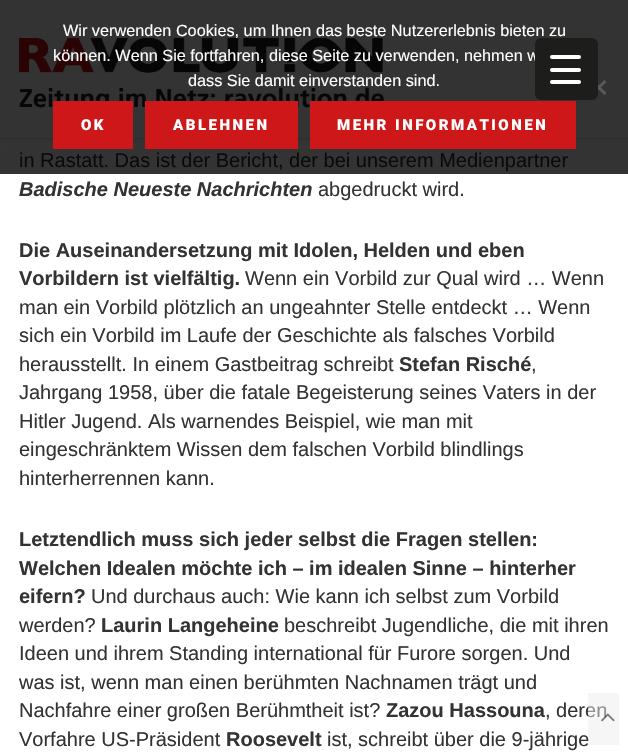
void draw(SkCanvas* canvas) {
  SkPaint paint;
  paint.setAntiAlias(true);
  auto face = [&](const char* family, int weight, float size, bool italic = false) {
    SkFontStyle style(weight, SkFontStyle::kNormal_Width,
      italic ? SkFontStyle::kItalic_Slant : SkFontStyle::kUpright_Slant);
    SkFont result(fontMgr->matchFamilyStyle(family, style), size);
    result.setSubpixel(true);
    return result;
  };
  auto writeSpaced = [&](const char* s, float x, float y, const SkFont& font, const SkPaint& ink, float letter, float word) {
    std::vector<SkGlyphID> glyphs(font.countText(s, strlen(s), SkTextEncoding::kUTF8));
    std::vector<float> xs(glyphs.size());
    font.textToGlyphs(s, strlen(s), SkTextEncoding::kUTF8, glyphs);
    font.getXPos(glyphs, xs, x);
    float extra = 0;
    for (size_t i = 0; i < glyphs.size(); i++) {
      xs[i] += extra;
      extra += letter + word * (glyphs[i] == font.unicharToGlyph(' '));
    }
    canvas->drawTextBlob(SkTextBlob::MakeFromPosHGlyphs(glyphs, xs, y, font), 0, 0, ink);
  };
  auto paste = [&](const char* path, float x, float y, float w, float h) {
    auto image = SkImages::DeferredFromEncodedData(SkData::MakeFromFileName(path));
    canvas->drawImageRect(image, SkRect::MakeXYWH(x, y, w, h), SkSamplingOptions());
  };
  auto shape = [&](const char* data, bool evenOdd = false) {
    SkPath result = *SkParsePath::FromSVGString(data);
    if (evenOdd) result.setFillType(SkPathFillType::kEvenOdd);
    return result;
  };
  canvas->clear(0xffffffff);
  paint.setColor(0xff333333);
  canvas->drawRect(SkRect::MakeXYWH(0, 139, 628, 35), paint);
  paint.setColor(0x33262626);
  paint.setMaskFilter(SkMaskFilter::MakeBlur(kNormal_SkBlurStyle, 3));
  canvas->drawRect(SkRect::MakeXYWH(0, 1, 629, 139), paint);
  paint.setMaskFilter(nullptr);
  paint.setColor(0xff333333);
  canvas->drawRect(SkRect::MakeXYWH(0, 0, 628, 138), paint);
  paint.setColor(0xff5a5a5a);
  canvas->drawPath(shape("M604.5 80L606.5 82L593 95L591 93Z"), paint);
  canvas->drawPath(shape("M591 82L593 80L606.5 93L604.5 95Z"), paint);
  paint.setColor(0xff2d2d2d);
  canvas->drawRect(SkRect::MakeXYWH(0, 138, 628, 1), paint);
  paste("img/1.png", 19, 38, 365, 70);
  {
    const struct { float x, y, w, h; SkColor color; } items[] = {
      {53, 101, 80, 48, 0xffcd1719},
      {145, 101, 153, 48, 0xffcd1719},
      {310, 101, 266, 48, 0xffcd1719},
    };
    for (auto [x, y, w, h, color] : items) {
      paint.setColor(color);
      canvas->drawRect(SkRect::MakeXYWH(x, y, w, h), paint);
    }
  }
  auto f0 = face("Liberation Sans", 400, 16.25f);
  paint.setColor(0xffffffff);
  {
    const struct { const char* s; float x, y; } items[] = {
      {"Wir verwenden Cookies, um Ihnen das beste Nutzererlebnis bieten zu", 63, 36},
      {"können. Wenn Sie fortfahren, diese Seite zu verwenden, nehmen w", 53, 61},
      {"dass Sie damit einverstanden sind.", 188, 86},
    };
    for (auto [s, x, y] : items) {
      canvas->drawString(s, x, y, f0, paint);
    }
  }
  auto f1 = face("Roboto", 900, 15);
  {
    const struct { const char* s; float x, y; } items[] = {
      {"OK", 81, 130},
      {"ABLEHNEN", 173, 130},
      {"MEHR INFORMATIONEN", 337, 130},
    };
    for (auto [s, x, y] : items) {
      writeSpaced(s, x, y, f1, paint, 2.5f, 0);
    }
  }
  paint.setColor(0xff1d1d1b);
  canvas->drawRoundRect(SkRect::MakeXYWH(535, 38, 63, 62), 6, 6, paint);
  paint.setColor(0xffffffff);
  canvas->drawRoundRect(SkRect::MakeXYWH(550, 68, 31, 4), 2, 2, paint);
  canvas->drawRoundRect(SkRect::MakeXYWH(550, 55, 31, 4), 2, 2, paint);
  canvas->drawRoundRect(SkRect::MakeXYWH(550, 80, 31, 4), 2, 2, paint);
  auto f2 = face("Liberation Sans", 400, 20);
  paint.setColor(0xff0a0a0a);
  canvas->drawString("in Rastatt. Das ist der Bericht, der bei unserem Medienpartner", 19, 167, f2, paint);
  auto f3 = face("Liberation Sans", 700, 20, true);
  paint.setColor(0xff333333);
  canvas->drawString("Badische Neueste Nachrichten", 19, 196, f3, paint);
  canvas->drawString("abgedruckt wird.", 318, 196, f2, paint);
  auto f4 = face("Liberation Sans", 700, 20);
  canvas->drawString("Die Auseinandersetzung mit Idolen, Helden und eben", 19, 257, f4, paint);
  canvas->drawString("Vorbildern ist vielfältig.", 19, 285, f4, paint);
  {
    const struct { const char* s; float x, y; } items[] = {
      {"Wenn ein Vorbild zur Qual wird … Wenn", 245, 285},
      {"man ein Vorbild plötzlich an ungeahnter Stelle entdeckt … Wenn", 19, 314},
      {"sich ein Vorbild im Laufe der Geschichte als falsches Vorbild", 19, 342},
      {"herausstellt. In einem Gastbeitrag schreibt", 19, 371},
    };
    for (auto [s, x, y] : items) {
      canvas->drawString(s, x, y, f2, paint);
    }
  }
  canvas->drawString("Stefan Risché", 399, 371, f4, paint);
  {
    const struct { const char* s; float x, y; } items[] = {
      {",", 531, 371},
      {"Jahrgang 1958, über die fatale Begeisterung seines Vaters in der", 19, 399},
      {"Hitler Jugend. Als warnendes Beispiel, wie man mit", 19, 428},
      {"eingeschränktem Wissen dem falschen Vorbild blindlings", 19, 456},
      {"hinterherrennen kann.", 19, 485},
    };
    for (auto [s, x, y] : items) {
      canvas->drawString(s, x, y, f2, paint);
    }
  }
  {
    const struct { const char* s; float x, y; } items[] = {
      {"Letztendlich muss sich jeder selbst die Fragen stellen:", 19, 546},
      {"Welchen Idealen möchte ich – im idealen Sinne – hinterher", 19, 575},
      {"eifern?", 19, 603},
    };
    for (auto [s, x, y] : items) {
      canvas->drawString(s, x, y, f4, paint);
    }
  }
  canvas->drawString("Und durchaus auch: Wie kann ich selbst zum Vorbild", 91, 603, f2, paint);
  canvas->drawString("werden?", 19, 632, f2, paint);
  canvas->drawString("Laurin Langeheine", 101, 632, f4, paint);
  {
    const struct { const char* s; float x, y; } items[] = {
      {"beschreibt Jugendliche, die mit ihren", 284, 632},
      {"Ideen und ihrem Standing international für Furore sorgen. Und", 19, 660},
      {"was ist, wenn man einen berühmten Nachnamen trägt und", 19, 689},
      {"Nachfahre einer großen Berühmtheit ist?", 19, 717},
    };
    for (auto [s, x, y] : items) {
      canvas->drawString(s, x, y, f2, paint);
    }
  }
  canvas->drawString("Zazou Hassouna", 386, 717, f4, paint);
  canvas->drawString(", deren", 545, 717, f2, paint);
  canvas->drawString("Vorfahre US-Präsident", 19, 746, f2, paint);
  canvas->drawString("Roosevelt", 226, 746, f4, paint);
  canvas->drawString("ist, schreibt über die 9-jährige", 327, 746, f2, paint);
  paint.setColor(0x80eeeeee);
  canvas->drawRect(SkRect::MakeXYWH(588, 693, 31, 52), paint);
  paste("img/2.png", 601, 713, 14, 9);
}
